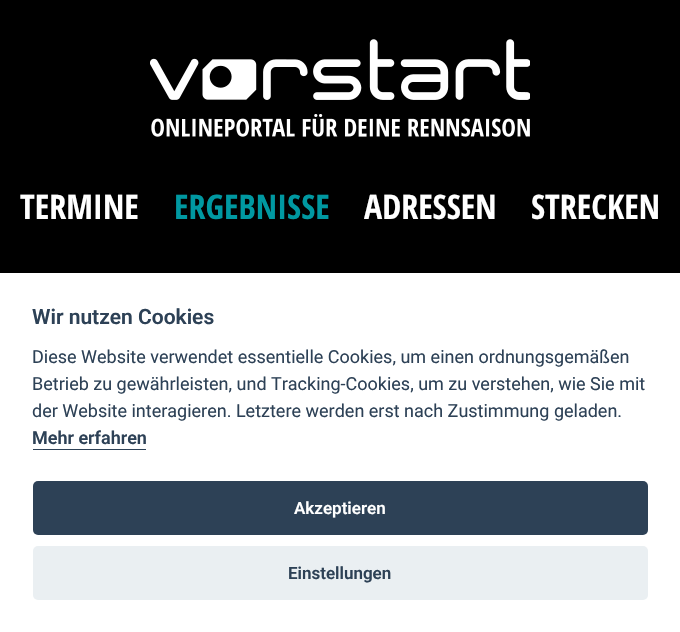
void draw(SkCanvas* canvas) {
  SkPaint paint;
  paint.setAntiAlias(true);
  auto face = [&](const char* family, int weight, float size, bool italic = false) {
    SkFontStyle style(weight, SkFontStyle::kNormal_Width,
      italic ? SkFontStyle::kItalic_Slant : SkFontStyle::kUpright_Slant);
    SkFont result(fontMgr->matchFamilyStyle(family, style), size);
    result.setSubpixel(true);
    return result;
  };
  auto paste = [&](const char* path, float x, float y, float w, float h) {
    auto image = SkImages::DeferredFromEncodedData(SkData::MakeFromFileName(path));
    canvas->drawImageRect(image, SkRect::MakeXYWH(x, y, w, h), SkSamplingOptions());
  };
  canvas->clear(0xff000000);
  paste("img/1.png", 150, 39, 380, 98);
  paint.setColor(0xffffffff);
  canvas->drawRect(SkRect::MakeXYWH(0, 273, 680, 359), paint);
  paint.setColor(0xff2d4156);
  canvas->drawRect(SkRect::MakeXYWH(33, 449, 113, 1), paint);
  canvas->drawRoundRect(SkRect::MakeXYWH(33, 481, 615, 54), 5, 5, paint);
  paint.setColor(0xffeaeff2);
  canvas->drawRoundRect(SkRect::MakeXYWH(33, 546, 615, 54), 5, 5, paint);
  auto f0 = face("Open Sans Condensed", 700, 34);
  paint.setColor(0xffffffff);
  canvas->drawString("TERMINE", 20, 219, f0, paint);
  paint.setColor(0xff0098a1);
  canvas->drawString("ERGEBNISSE", 174, 219, f0, paint);
  paint.setColor(0xffffffff);
  canvas->drawString("ADRESSEN", 364, 219, f0, paint);
  canvas->drawString("STRECKEN", 531, 219, f0, paint);
  auto f1 = face("Roboto", 600, 21);
  paint.setColor(0xff2d4156);
  canvas->drawString("Wir nutzen Cookies", 32, 324, f1, paint);
  auto f2 = face("Roboto", 400, 18);
  {
    const struct { const char* s; float x, y; } items[] = {
      {"Diese Website verwendet essentielle Cookies, um einen ordnungsgemäßen", 32, 363},
      {"Betrieb zu gewährleisten, und Tracking-Cookies, um zu verstehen, wie Sie mit", 32, 390},
      {"der Website interagieren. Letztere werden erst nach Zustimmung geladen.", 32, 417},
    };
    for (auto [s, x, y] : items) {
      canvas->drawString(s, x, y, f2, paint);
    }
  }
  auto f3 = face("Roboto", 600, 18);
  canvas->drawString("Mehr erfahren", 32, 444, f3, paint);
  auto f4 = face("Roboto", 600, 17);
  paint.setColor(0xffffffff);
  canvas->drawString("Akzeptieren", 294, 514, f4, paint);
  paint.setColor(0xff2d4156);
  canvas->drawString("Einstellungen", 288, 579, f4, paint);
}
